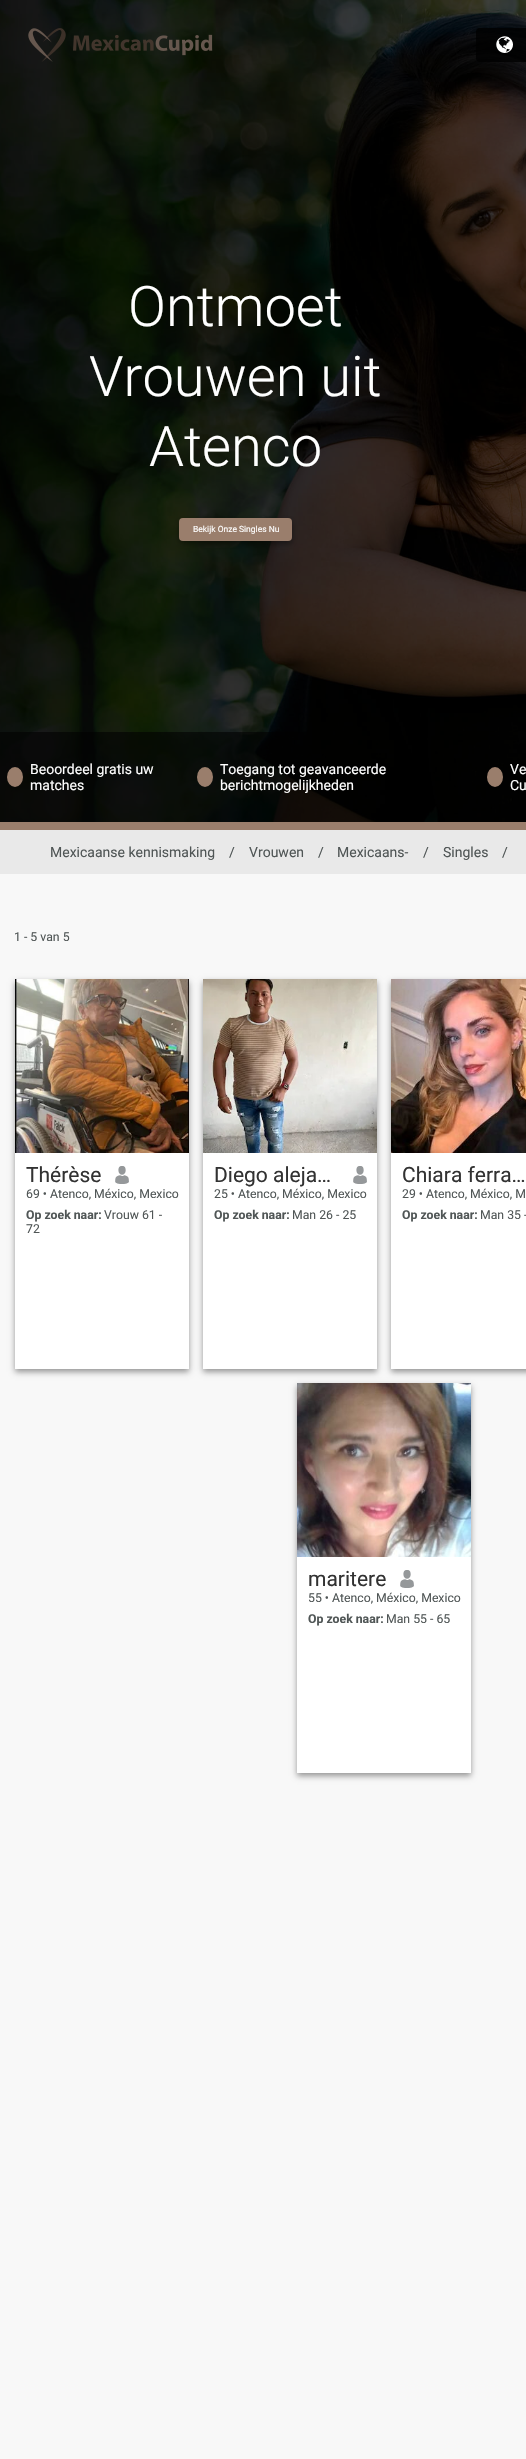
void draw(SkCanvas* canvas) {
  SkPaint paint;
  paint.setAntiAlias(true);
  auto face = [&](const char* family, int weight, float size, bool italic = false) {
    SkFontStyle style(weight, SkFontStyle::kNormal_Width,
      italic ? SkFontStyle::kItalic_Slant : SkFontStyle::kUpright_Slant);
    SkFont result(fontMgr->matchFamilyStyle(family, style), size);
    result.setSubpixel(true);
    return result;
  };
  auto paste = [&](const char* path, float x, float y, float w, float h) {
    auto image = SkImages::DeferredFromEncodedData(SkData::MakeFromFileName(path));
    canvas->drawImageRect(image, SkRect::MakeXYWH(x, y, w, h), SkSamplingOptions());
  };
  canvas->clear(0xfff8f8f8);
  paste("img/4.png", 0, 0, 526, 822);
  paste("img/1.png", 28, 28, 38, 34);
  paste("img/2.png", 73, 34, 140, 22);
  paint.setColor(0xcc000000);
  canvas->drawRoundRect(SkRect::MakeXYWH(476, 28, 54, 34), 4, 4, paint);
  paste("img/3.png", 496, 36, 17, 17);
  paint.setColor(0x66000000);
  paint.setMaskFilter(SkMaskFilter::MakeBlur(kNormal_SkBlurStyle, 3));
  canvas->drawRoundRect(SkRect::MakeXYWH(179, 521, 113, 23), 4, 4, paint);
  paint.setMaskFilter(nullptr);
  paint.setColor(0xff9a7e6c);
  canvas->drawRoundRect(SkRect::MakeXYWH(179, 518, 113, 23), 4, 4, paint);
  paint.setColor(0x99000000);
  canvas->drawRect(SkRect::MakeXYWH(0, 732, 438, 90), paint);
  paint.setColor(0xff9a7e6c);
  canvas->drawOval(SkRect::MakeXYWH(7, 767, 16, 20), paint);
  canvas->drawOval(SkRect::MakeXYWH(197, 767, 16, 20), paint);
  canvas->drawOval(SkRect::MakeXYWH(487, 767, 16, 20), paint);
  canvas->drawRect(SkRect::MakeXYWH(0, 822, 526, 8), paint);
  paint.setColor(0xffe9e9e9);
  canvas->drawRect(SkRect::MakeXYWH(0, 830, 526, 44), paint);
  paint.setColor(0x66000000);
  paint.setMaskFilter(SkMaskFilter::MakeBlur(kNormal_SkBlurStyle, 3));
  canvas->drawRect(SkRect::MakeXYWH(15, 982, 174, 390), paint);
  paint.setMaskFilter(nullptr);
  paint.setColor(0xffffffff);
  canvas->drawRect(SkRect::MakeXYWH(15, 1153, 174, 216), paint);
  paste("img/5.png", 15, 979, 174, 174);
  paste("img/6.png", 115, 1166, 14, 18);
  paint.setColor(0x66000000);
  paint.setMaskFilter(SkMaskFilter::MakeBlur(kNormal_SkBlurStyle, 3));
  canvas->drawRect(SkRect::MakeXYWH(203, 982, 174, 390), paint);
  paint.setMaskFilter(nullptr);
  paint.setColor(0xffffffff);
  canvas->drawRect(SkRect::MakeXYWH(203, 1153, 174, 216), paint);
  paste("img/7.png", 203, 979, 174, 174);
  paste("img/6.png", 353, 1166, 14, 18);
  paint.setColor(0x66000000);
  paint.setMaskFilter(SkMaskFilter::MakeBlur(kNormal_SkBlurStyle, 3));
  canvas->drawRect(SkRect::MakeXYWH(391, 982, 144, 390), paint);
  paint.setMaskFilter(nullptr);
  paint.setColor(0xffffffff);
  canvas->drawRect(SkRect::MakeXYWH(391, 1153, 135, 216), paint);
  paste("img/8.png", 391, 979, 135, 174);
  paint.setColor(0x66000000);
  paint.setMaskFilter(SkMaskFilter::MakeBlur(kNormal_SkBlurStyle, 3));
  canvas->drawRect(SkRect::MakeXYWH(297, 1386, 174, 390), paint);
  paint.setMaskFilter(nullptr);
  paint.setColor(0xffffffff);
  canvas->drawRect(SkRect::MakeXYWH(297, 1557, 174, 216), paint);
  paste("img/9.png", 297, 1383, 174, 174);
  paste("img/6.png", 400, 1570, 14, 18);
  auto f0 = face("Roboto", 300, 56);
  {
    const struct { const char* s; float x, y; } items[] = {
      {"Ontmoet", 128, 326},
      {"Vrouwen uit", 89, 396},
      {"Atenco", 149, 466},
    };
    for (auto [s, x, y] : items) {
      canvas->drawString(s, x, y, f0, paint);
    }
  }
  auto f1 = face("Roboto", 400, 8.5f);
  canvas->drawString("Bekijk Onze Singles Nu", 193, 532, f1, paint);
  auto f2 = face("Roboto", 400, 14);
  {
    const struct { const char* s; float x, y; } items[] = {
      {"Beoordeel gratis uw", 30, 774},
      {"matches", 30, 790},
      {"Toegang tot geavanceerde", 220, 774},
      {"berichtmogelijkheden", 220, 790},
      {"Ve", 510, 774},
      {"Cu", 510, 790},
    };
    for (auto [s, x, y] : items) {
      canvas->drawString(s, x, y, f2, paint);
    }
  }
  paint.setColor(0xff505656);
  {
    const struct { const char* s; float x, y; } items[] = {
      {"Mexicaanse kennismaking", 50, 857},
      {"/", 229, 857},
      {"Vrouwen", 249, 857},
      {"/", 318, 857},
      {"Mexicaans-", 337, 857},
      {"/", 423, 857},
      {"Singles", 443, 857},
      {"/", 502, 857},
    };
    for (auto [s, x, y] : items) {
      canvas->drawString(s, x, y, f2, paint);
    }
  }
  auto f3 = face("Roboto", 400, 12.25f);
  canvas->drawString("1 - 5 van 5", 14, 941, f3, paint);
  auto f4 = face("Roboto", 400, 21);
  paint.setColor(0xff323232);
  canvas->drawString("Thérèse", 26, 1182, f4, paint);
  paint.setColor(0xff505656);
  canvas->drawString("69 • Atenco, México, Mexico", 26, 1198, f3, paint);
  auto f5 = face("Roboto", 700, 12.25f);
  canvas->drawString("Op zoek naar:", 26, 1219, f5, paint);
  canvas->drawString("Vrouw 61 -", 104, 1219, f3, paint);
  canvas->drawString("72", 26, 1233, f3, paint);
  paint.setColor(0xff323232);
  canvas->drawString("Diego aleja…", 214, 1182, f4, paint);
  paint.setColor(0xff505656);
  canvas->drawString("25 • Atenco, México, Mexico", 214, 1198, f3, paint);
  canvas->drawString("Op zoek naar:", 214, 1219, f5, paint);
  canvas->drawString("Man 26 - 25", 292, 1219, f3, paint);
  paint.setColor(0xff323232);
  canvas->drawString("Chiara ferra…", 402, 1182, f4, paint);
  paint.setColor(0xff505656);
  canvas->drawString("29 • Atenco, México, M", 402, 1198, f3, paint);
  canvas->drawString("Op zoek naar:", 402, 1219, f5, paint);
  canvas->drawString("Man 35 -", 480, 1219, f3, paint);
  paint.setColor(0xff323232);
  canvas->drawString("maritere", 308, 1586, f4, paint);
  paint.setColor(0xff505656);
  canvas->drawString("55 • Atenco, México, Mexico", 308, 1602, f3, paint);
  canvas->drawString("Op zoek naar:", 308, 1623, f5, paint);
  canvas->drawString("Man 55 - 65", 386, 1623, f3, paint);
}
